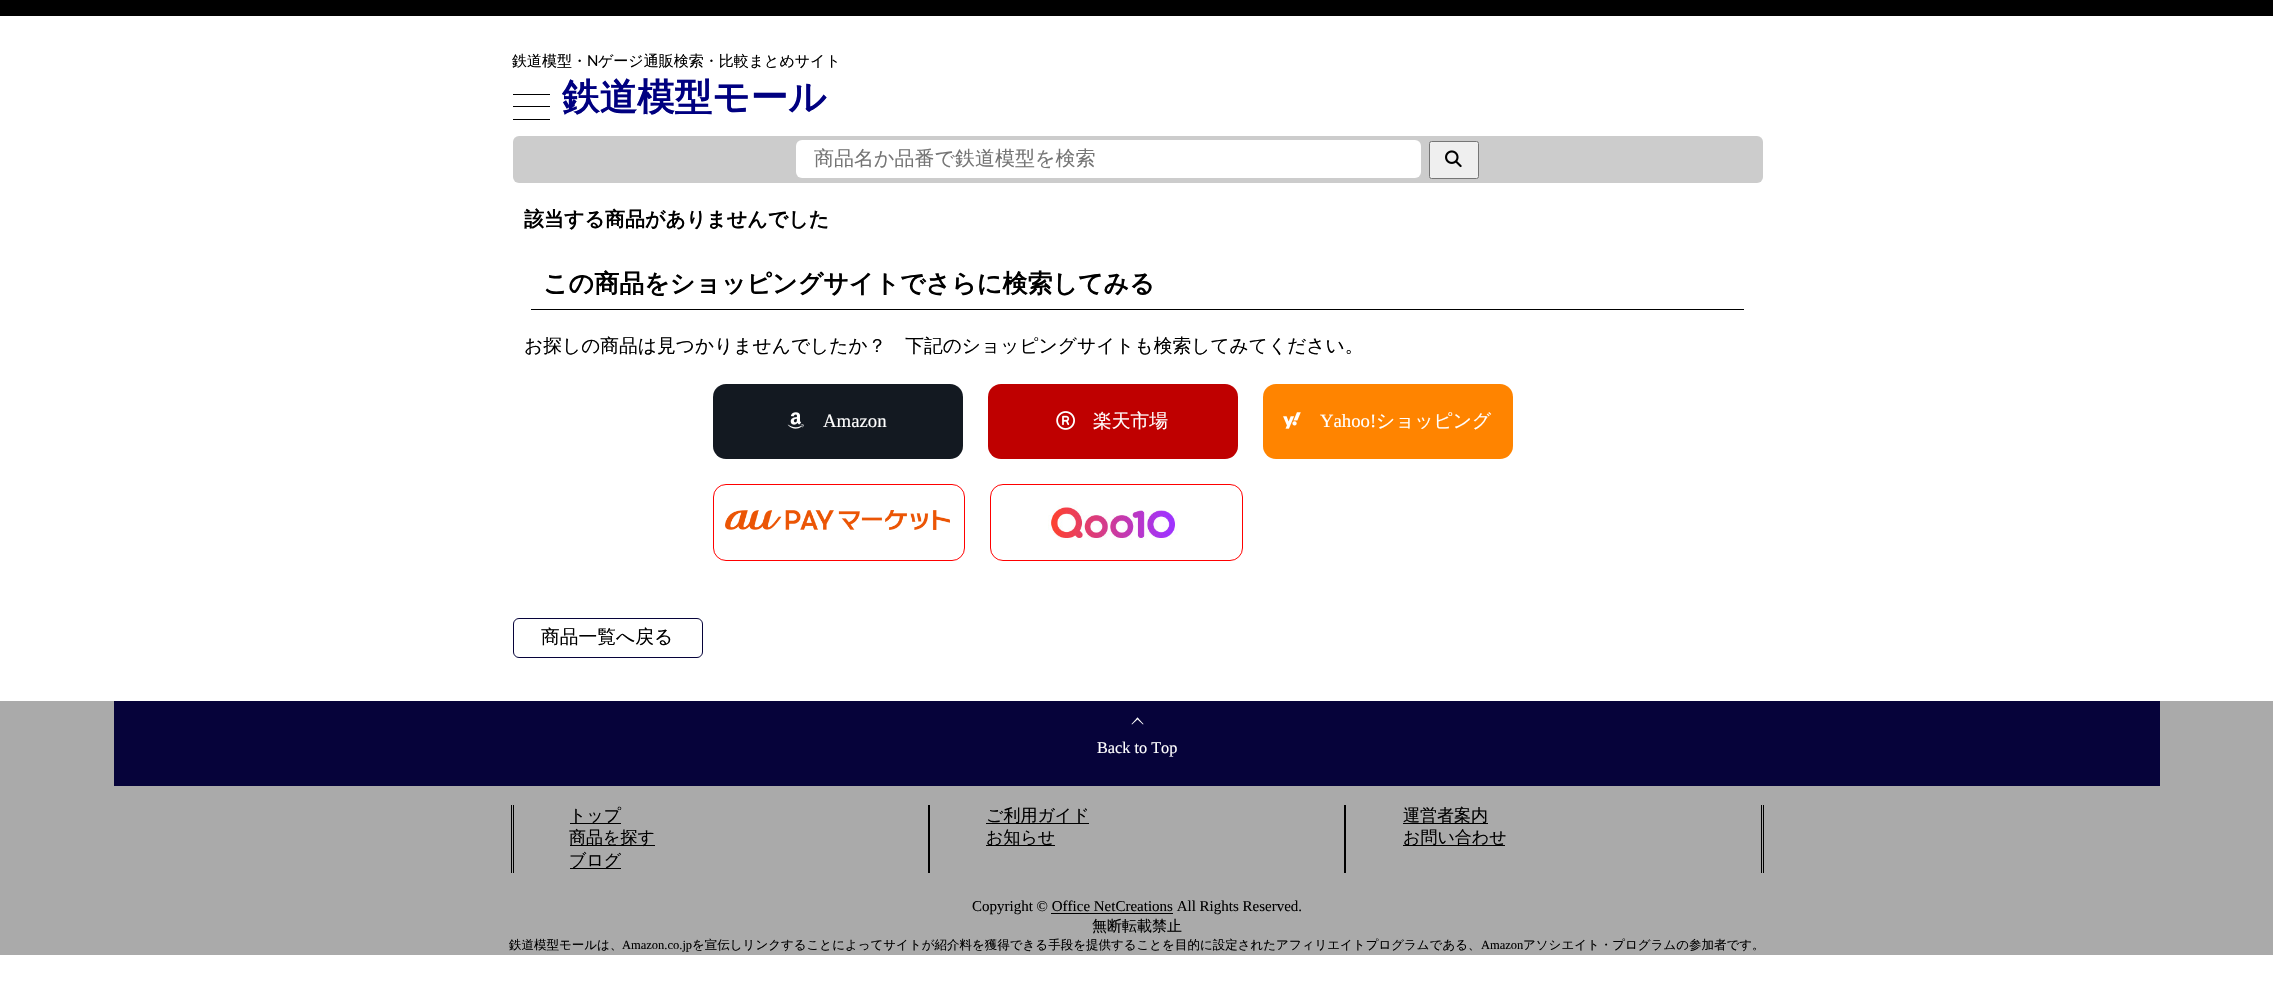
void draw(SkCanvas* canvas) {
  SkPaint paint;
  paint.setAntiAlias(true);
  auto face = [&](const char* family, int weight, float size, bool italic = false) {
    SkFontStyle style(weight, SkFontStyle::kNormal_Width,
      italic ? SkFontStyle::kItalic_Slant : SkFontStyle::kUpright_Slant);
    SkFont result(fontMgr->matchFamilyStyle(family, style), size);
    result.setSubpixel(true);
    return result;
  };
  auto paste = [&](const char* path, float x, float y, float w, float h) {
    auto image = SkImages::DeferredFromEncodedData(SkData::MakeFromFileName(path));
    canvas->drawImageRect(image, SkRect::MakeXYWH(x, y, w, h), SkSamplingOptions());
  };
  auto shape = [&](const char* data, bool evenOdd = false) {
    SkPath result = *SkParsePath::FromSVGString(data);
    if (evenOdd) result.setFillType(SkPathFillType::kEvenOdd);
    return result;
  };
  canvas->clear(0xffffffff);
  {
    const struct { float x, y, w, h; SkColor color; } items[] = {
      {0, 0, 2273, 16, 0xff000000},
      {513, 94, 37, 1, 0xff000000},
      {513, 106, 37, 1, 0xff000000},
      {513, 119, 37, 1, 0xff000000},
    };
    for (auto [x, y, w, h, color] : items) {
      paint.setColor(color);
      canvas->drawRect(SkRect::MakeXYWH(x, y, w, h), paint);
    }
  }
  paint.setColor(0xffcccccc);
  canvas->drawRoundRect(SkRect::MakeXYWH(513, 136, 1250, 47), 6, 6, paint);
  paint.setColor(0xffffffff);
  canvas->drawRoundRect(SkRect::MakeXYWH(796, 140, 625, 38), 6, 6, paint);
  paint.setColor(0xffefefef);
  canvas->drawRoundRect(SkRect::MakeXYWH(1429.5f, 141.5f, 49, 37), 2, 2, paint);
  paint.setStroke(true);
  paint.setStrokeWidth(1);
  paint.setColor(0xff767676);
  canvas->drawRoundRect(SkRect::MakeXYWH(1429.5f, 141.5f, 49, 37), 2, 2, paint);
  paste("img/1.png", 1445, 150, 17, 18);
  paint.setStroke(false);
  paint.setColor(0xff000000);
  canvas->drawRect(SkRect::MakeXYWH(531, 309, 1213, 1), paint);
  paint.setColor(0xff131921);
  canvas->drawRoundRect(SkRect::MakeXYWH(713, 384, 250, 75), 13, 13, paint);
  paste("img/2.png", 787, 412, 17, 17);
  paint.setColor(0xffbf0000);
  canvas->drawRoundRect(SkRect::MakeXYWH(988, 384, 250, 75), 13, 13, paint);
  paste("img/3.png", 1056, 411, 19, 19);
  paint.setColor(0xffff8400);
  canvas->drawRoundRect(SkRect::MakeXYWH(1263, 384, 250, 75), 13, 13, paint);
  paste("img/4.png", 1283, 412, 18, 17);
  paint.setStroke(true);
  paint.setColor(0xffff0000);
  canvas->drawRoundRect(SkRect::MakeXYWH(713.5f, 484.5f, 251, 76), 12.5f, 12.5f, paint);
  paste("img/5.png", 725, 510, 225, 20);
  canvas->drawRoundRect(SkRect::MakeXYWH(990.5f, 484.5f, 252, 76), 12.5f, 12.5f, paint);
  paste("img/6.png", 1048, 505, 130, 35);
  paint.setColor(0xff06033a);
  canvas->drawRoundRect(SkRect::MakeXYWH(513.5f, 618.5f, 189, 39), 5.5f, 5.5f, paint);
  paint.setStroke(false);
  paint.setColor(0xffaaaaaa);
  canvas->drawRect(SkRect::MakeXYWH(0, 701, 2273, 254), paint);
  paint.setColor(0xff06033a);
  canvas->drawRect(SkRect::MakeXYWH(114, 701, 2046, 85), paint);
  paint.setColor(0xffffffff);
  canvas->drawPath(shape("M1137.5 717.5L1143.5 724L1143 724.5L1136.5 718.5Z"), paint);
  canvas->drawPath(shape("M1137.5 717.5L1138.5 718.5L1132 724.5L1131.5 724Z"), paint);
  {
    const struct { float x, y, w, h; SkColor color; } items[] = {
      {1763, 805, 1, 68, 0xff000000},
      {511, 805, 1, 68, 0xff000000},
      {928, 805, 2, 68, 0xff000000},
      {513, 805, 1, 68, 0xff000000},
      {570, 823, 51, 1, 0xff000000},
      {570, 845, 85, 1, 0xff000000},
      {570, 868, 51, 1, 0xff000000},
      {1344, 805, 2, 68, 0xff000000},
      {986, 823, 103, 1, 0xff000000},
      {986, 845, 69, 1, 0xff000000},
      {1761, 805, 1, 68, 0xff000000},
      {1403, 823, 85, 1, 0xff000000},
      {1403, 845, 102, 1, 0xff000000},
      {1051, 913, 122, 1, 0xff000000},
    };
    for (auto [x, y, w, h, color] : items) {
      paint.setColor(color);
      canvas->drawRect(SkRect::MakeXYWH(x, y, w, h), paint);
    }
  }
  auto f0 = face("WenQuanYi Zen Hei", 500, 15);
  canvas->drawString("鉄道模型・", 512, 66, f0, paint);
  auto f1 = face("Lato", 400, 15);
  canvas->drawString("N", 587, 66, f1, paint);
  canvas->drawString("ゲージ通販検索・比較まとめサイト", 598, 66, f0, paint);
  auto f2 = face("WenQuanYi Zen Hei", 700, 37.5f);
  paint.setColor(0xff000080);
  canvas->drawString("鉄道模型モール", 562, 110, f2, paint);
  auto f3 = face("WenQuanYi Zen Hei", 500, 20);
  paint.setColor(0xff757575);
  canvas->drawString("商品名か品番で鉄道模型を検索", 814, 165, f3, paint);
  auto f4 = face("WenQuanYi Zen Hei", 700, 20);
  paint.setColor(0xff000000);
  canvas->drawString("該当する商品がありませんでした", 524, 226, f4, paint);
  auto f5 = face("WenQuanYi Zen Hei", 700, 25);
  canvas->drawString("この商品をショッピングサイトでさらに検索してみる", 543, 292, f5, paint);
  auto f6 = face("WenQuanYi Zen Hei", 500, 18.75f);
  canvas->drawString("お探しの商品は見つかりませんでしたか？　下記のショッピングサイトも検索してみてください。", 524, 352, f6, paint);
  auto f7 = face("Liberation Serif", 400, 18.75f);
  paint.setColor(0xffffffff);
  canvas->drawString("Amazon", 823, 427, f7, paint);
  canvas->drawString("楽天市場", 1093, 427, f6, paint);
  canvas->drawString("Yahoo!", 1320, 427, f7, paint);
  canvas->drawString("ショッピング", 1376, 427, f6, paint);
  paint.setColor(0xff000000);
  canvas->drawString("商品一覧へ戻る", 541, 643, f6, paint);
  auto f8 = face("Liberation Serif", 400, 16.25f);
  paint.setColor(0xffffffff);
  canvas->drawString("Back to Top", 1097, 753, f8, paint);
  auto f9 = face("WenQuanYi Zen Hei", 500, 17);
  paint.setColor(0xff000000);
  {
    const struct { const char* s; float x, y; } items[] = {
      {"トップ", 569, 821},
      {"商品を探す", 569, 843},
      {"ブログ", 569, 866},
      {"ご利用ガイド", 986, 821},
      {"お知らせ", 986, 843},
      {"運営者案内", 1403, 821},
      {"お問い合わせ", 1403, 843},
    };
    for (auto [s, x, y] : items) {
      canvas->drawString(s, x, y, f9, paint);
    }
  }
  auto f10 = face("Liberation Serif", 400, 15);
  canvas->drawString("Copyright © Office NetCreations All Rights Reserved.", 972, 911, f10, paint);
  canvas->drawString("無断転載禁止", 1092, 931, f0, paint);
  auto f11 = face("WenQuanYi Zen Hei", 500, 12.5f);
  canvas->drawString("鉄道模型モールは、", 509, 949, f11, paint);
  auto f12 = face("Liberation Serif", 400, 12.5f);
  canvas->drawString("Amazon.co.jp", 622, 949, f12, paint);
  canvas->drawString("を宣伝しリンクすることによってサイトが紹介料を獲得できる手段を提供することを目的に設定されたアフィリエイトプログラムである、", 692, 949, f11, paint);
  canvas->drawString("Amazon", 1481, 949, f12, paint);
  canvas->drawString("アソシエイト・プログラムの参加者です。", 1523, 949, f11, paint);
}
